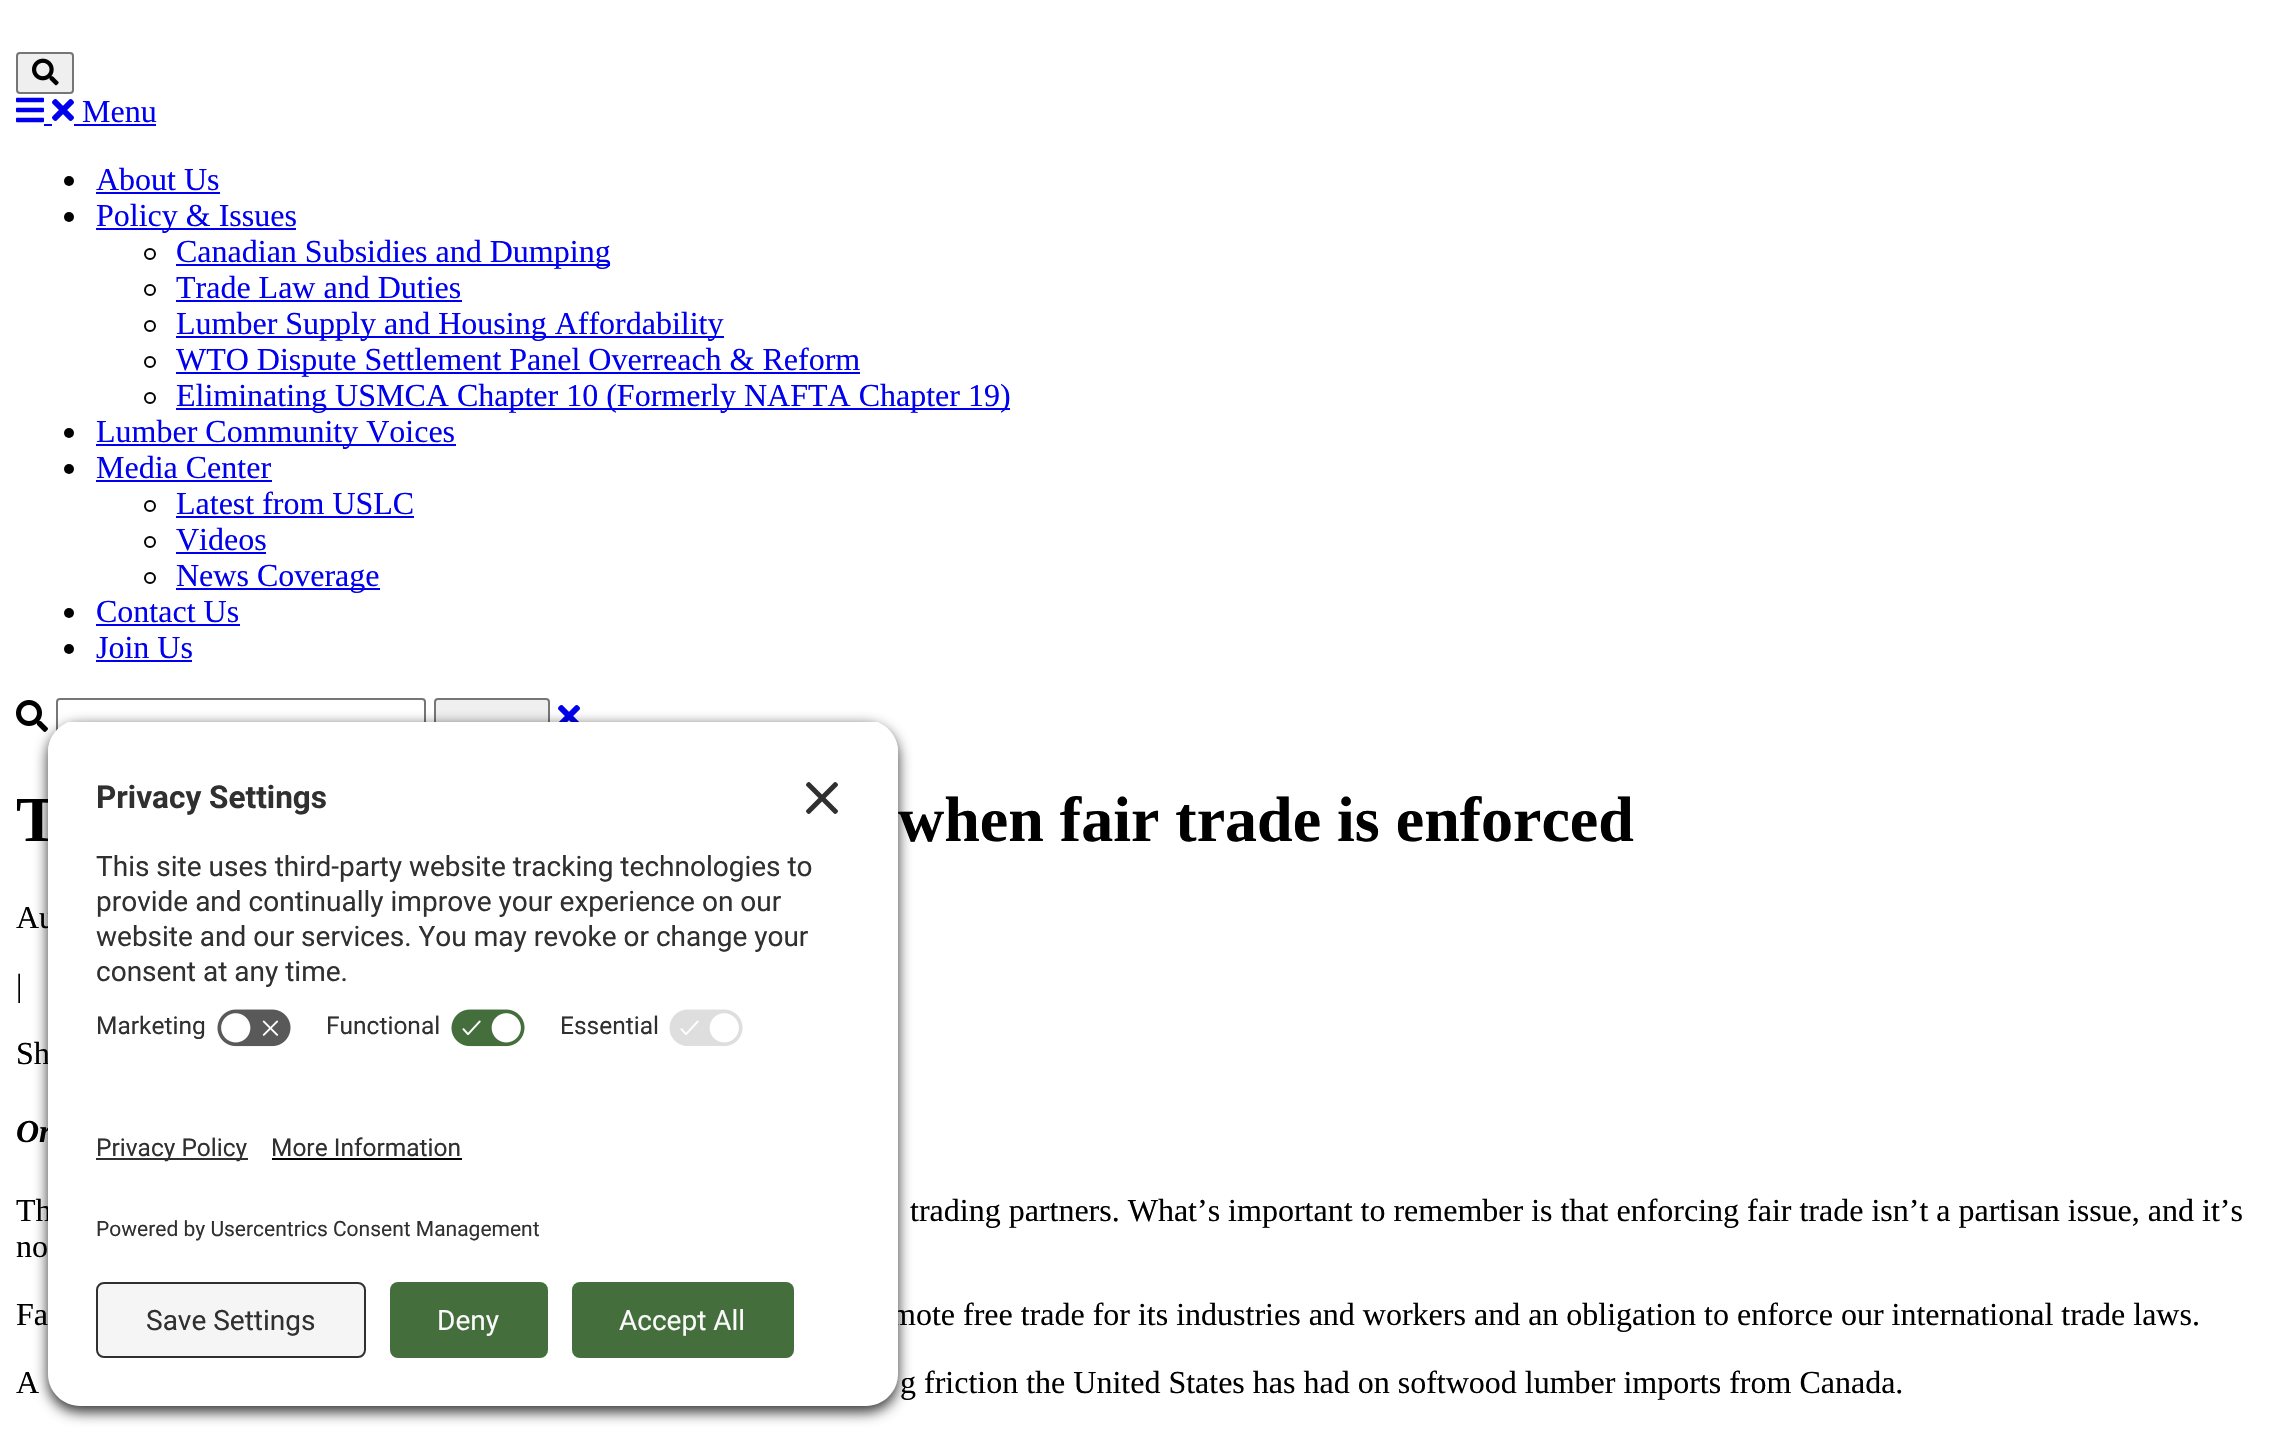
void draw(SkCanvas* canvas) {
  SkPaint paint;
  paint.setAntiAlias(true);
  auto face = [&](const char* family, int weight, float size, bool italic = false) {
    SkFontStyle style(weight, SkFontStyle::kNormal_Width,
      italic ? SkFontStyle::kItalic_Slant : SkFontStyle::kUpright_Slant);
    SkFont result(fontMgr->matchFamilyStyle(family, style), size);
    result.setSubpixel(true);
    return result;
  };
  auto paste = [&](const char* path, float x, float y, float w, float h) {
    auto image = SkImages::DeferredFromEncodedData(SkData::MakeFromFileName(path));
    canvas->drawImageRect(image, SkRect::MakeXYWH(x, y, w, h), SkSamplingOptions());
  };
  auto shape = [&](const char* data, bool evenOdd = false) {
    SkPath result = *SkParsePath::FromSVGString(data);
    if (evenOdd) result.setFillType(SkPathFillType::kEvenOdd);
    return result;
  };
  canvas->clear(0xffffffff);
  paint.setColor(0xffefefef);
  canvas->drawRoundRect(SkRect::MakeXYWH(17, 53, 56, 40), 3, 3, paint);
  paint.setStroke(true);
  paint.setStrokeWidth(2);
  paint.setColor(0xff767676);
  canvas->drawRoundRect(SkRect::MakeXYWH(17, 53, 56, 40), 3, 3, paint);
  paste("img/1.png", 32, 58, 27, 28);
  paste("img/2.png", 16, 97, 28, 26);
  paste("img/3.png", 52, 99, 22, 22);
  paint.setStroke(false);
  paint.setColor(0xff0000ee);
  canvas->drawRect(SkRect::MakeXYWH(74, 124, 82, 2), paint);
  canvas->drawRect(SkRect::MakeXYWH(44, 124, 8, 2), paint);
  paint.setColor(0xff000000);
  canvas->drawCircle(69, 181, 5, paint);
  paint.setColor(0xff0000ee);
  canvas->drawRect(SkRect::MakeXYWH(96, 192, 124, 2), paint);
  paint.setColor(0xff000000);
  canvas->drawCircle(69, 217, 5, paint);
  paint.setColor(0xff0000ee);
  canvas->drawRect(SkRect::MakeXYWH(96, 228, 200, 2), paint);
  paint.setStroke(true);
  paint.setColor(0xff000000);
  canvas->drawCircle(150, 254, 5, paint);
  paint.setStroke(false);
  paint.setColor(0xff0000ee);
  canvas->drawRect(SkRect::MakeXYWH(176, 264, 434, 2), paint);
  paint.setStroke(true);
  paint.setColor(0xff000000);
  canvas->drawCircle(150, 290, 5, paint);
  paint.setStroke(false);
  paint.setColor(0xff0000ee);
  canvas->drawRect(SkRect::MakeXYWH(176, 300, 286, 2), paint);
  paint.setStroke(true);
  paint.setColor(0xff000000);
  canvas->drawCircle(150, 326, 5, paint);
  paint.setStroke(false);
  paint.setColor(0xff0000ee);
  canvas->drawRect(SkRect::MakeXYWH(176, 336, 548, 2), paint);
  paint.setStroke(true);
  paint.setColor(0xff000000);
  canvas->drawCircle(150, 362, 5, paint);
  paint.setStroke(false);
  paint.setColor(0xff0000ee);
  canvas->drawRect(SkRect::MakeXYWH(176, 372, 684, 2), paint);
  paint.setStroke(true);
  paint.setColor(0xff000000);
  canvas->drawCircle(150, 398, 5, paint);
  paint.setStroke(false);
  paint.setColor(0xff0000ee);
  canvas->drawRect(SkRect::MakeXYWH(176, 408, 834, 2), paint);
  paint.setColor(0xff000000);
  canvas->drawCircle(69, 433, 5, paint);
  paint.setColor(0xff0000ee);
  canvas->drawRect(SkRect::MakeXYWH(96, 444, 360, 2), paint);
  paint.setColor(0xff000000);
  canvas->drawCircle(69, 469, 5, paint);
  paint.setColor(0xff0000ee);
  canvas->drawRect(SkRect::MakeXYWH(96, 480, 176, 2), paint);
  paint.setStroke(true);
  paint.setColor(0xff000000);
  canvas->drawCircle(150, 506, 5, paint);
  paint.setStroke(false);
  paint.setColor(0xff0000ee);
  canvas->drawRect(SkRect::MakeXYWH(176, 516, 238, 2), paint);
  paint.setStroke(true);
  paint.setColor(0xff000000);
  canvas->drawCircle(150, 542, 5, paint);
  paint.setStroke(false);
  paint.setColor(0xff0000ee);
  canvas->drawRect(SkRect::MakeXYWH(176, 552, 90, 2), paint);
  paint.setStroke(true);
  paint.setColor(0xff000000);
  canvas->drawCircle(150, 578, 5, paint);
  paint.setStroke(false);
  paint.setColor(0xff0000ee);
  canvas->drawRect(SkRect::MakeXYWH(176, 588, 204, 2), paint);
  paint.setColor(0xff000000);
  canvas->drawCircle(69, 613, 5, paint);
  paint.setColor(0xff0000ee);
  canvas->drawRect(SkRect::MakeXYWH(96, 624, 144, 2), paint);
  paint.setColor(0xff000000);
  canvas->drawCircle(69, 649, 5, paint);
  paint.setColor(0xff0000ee);
  canvas->drawRect(SkRect::MakeXYWH(96, 660, 96, 2), paint);
  paste("img/4.png", 16, 700, 32, 32);
  paint.setStroke(true);
  paint.setColor(0xff767676);
  canvas->drawRoundRect(SkRect::MakeXYWH(57, 699, 368, 40), 3, 3, paint);
  paint.setStroke(false);
  paint.setColor(0xffefefef);
  canvas->drawRoundRect(SkRect::MakeXYWH(435, 699, 114, 40), 3, 3, paint);
  paint.setStroke(true);
  paint.setColor(0xff767676);
  canvas->drawRoundRect(SkRect::MakeXYWH(435, 699, 114, 40), 3, 3, paint);
  paste("img/5.png", 558, 705, 22, 17);
  paint.setStroke(false);
  paint.setColor(0xcc000000);
  paint.setMaskFilter(SkMaskFilter::MakeBlur(kNormal_SkBlurStyle, 7));
  canvas->drawRoundRect(SkRect::MakeXYWH(48, 726, 850, 686), 32, 32, paint);
  paint.setMaskFilter(nullptr);
  auto f0 = face("Liberation Serif", 400, 32);
  paint.setColor(0xff0000ee);
  {
    const struct { const char* s; float x, y; } items[] = {
      {"Menu", 82, 122},
      {"About Us", 96, 190},
      {"Policy & Issues", 96, 226},
      {"Canadian Subsidies and Dumping", 176, 262},
      {"Trade Law and Duties", 176, 298},
      {"Lumber Supply and Housing Affordability", 176, 334},
      {"WTO Dispute Settlement Panel Overreach & Reform", 176, 370},
      {"Eliminating USMCA Chapter 10 (Formerly NAFTA Chapter 19)", 176, 406},
      {"Lumber Community Voices", 96, 442},
      {"Media Center", 96, 478},
      {"Latest from USLC", 176, 514},
      {"Videos", 176, 550},
      {"News Coverage", 176, 586},
      {"Contact Us", 96, 622},
      {"Join Us", 96, 658},
    };
    for (auto [s, x, y] : items) {
      canvas->drawString(s, x, y, f0, paint);
    }
  }
  auto f1 = face("Liberation Serif", 700, 64);
  paint.setColor(0xff000000);
  canvas->drawString("T", 16, 841, f1, paint);
  canvas->drawString("when fair trade is enforced", 898, 841, f1, paint);
  {
    const struct { const char* s; float x, y; } items[] = {
      {"Au", 16, 928},
      {"|", 16, 996},
      {"Sh", 16, 1064},
    };
    for (auto [s, x, y] : items) {
      canvas->drawString(s, x, y, f0, paint);
    }
  }
  canvas->save();
  canvas->clipPath(shape("M80 720H866C883.5 720 898 734.5 898 752V1078H48V752C48 734.5 62.5 720 80 720Z"), true);
  paint.setColor(0xffffffff);
  canvas->drawRect(SkRect::MakeXYWH(48, 722, 850, 356), paint);
  canvas->drawRect(SkRect::MakeXYWH(48, 722, 850, 276), paint);
  canvas->restore();
  paste("img/6.png", 806, 782, 32, 32);
  auto f2 = face("Roboto", 700, 31.5f);
  paint.setColor(0xff303030);
  canvas->drawString("Privacy Settings", 96, 808, f2, paint);
  paste("img/9.png", 669, 1009, 74, 37);
  paste("img/8.png", 451, 1009, 74, 38);
  paste("img/7.png", 217, 1009, 74, 38);
  auto f3 = face("Roboto", 400, 28);
  {
    const struct { const char* s; float x, y; } items[] = {
      {"consent at any time.", 96, 981},
      {"website and our services. You may revoke or change your", 96, 946},
      {"provide and continually improve your experience on our", 96, 911},
      {"This site uses third-party website tracking technologies to", 96, 876},
    };
    for (auto [s, x, y] : items) {
      canvas->drawString(s, x, y, f3, paint);
    }
  }
  auto f4 = face("Roboto", 400, 24.5f);
  {
    const struct { const char* s; float x, y; } items[] = {
      {"Essential", 560, 1034},
      {"Functional", 326, 1034},
      {"Marketing", 96, 1034},
    };
    for (auto [s, x, y] : items) {
      canvas->drawString(s, x, y, f4, paint);
    }
  }
  auto f5 = face("Liberation Serif", 700, 32, true);
  paint.setColor(0xff000000);
  canvas->drawString("Or", 16, 1142, f5, paint);
  {
    const struct { const char* s; float x, y; } items[] = {
      {"Th", 16, 1221},
      {"trading partners. What’s important to remember is that enforcing fair trade isn’t a partisan issue, and it’s", 910, 1221},
      {"no", 16, 1257},
      {"Fa", 16, 1325},
      {"mote free trade for its industries and workers and an obligation to enforce our international trade laws.", 891, 1325},
    };
    for (auto [s, x, y] : items) {
      canvas->drawString(s, x, y, f0, paint);
    }
  }
  paint.setColor(0xffffffff);
  canvas->drawPath(shape("M48 1078H898V1374C898 1391.5 883.5 1406 866 1406H80C62.5 1406 48 1391.5 48 1374Z"), paint);
  paint.setColor(0xff303030);
  canvas->drawRect(SkRect::MakeXYWH(96, 1158, 152, 2), paint);
  canvas->drawString("Privacy Policy", 96, 1156, f4, paint);
  paint.setColor(0xff456e3d);
  canvas->drawRoundRect(SkRect::MakeXYWH(572, 1282, 222, 76), 8, 8, paint);
  paint.setColor(0xfffafafa);
  canvas->drawString("Accept All", 619, 1330, f3, paint);
  paint.setColor(0xff456e3d);
  canvas->drawRoundRect(SkRect::MakeXYWH(390, 1282, 158, 76), 8, 8, paint);
  paint.setColor(0xfffafafa);
  canvas->drawString("Deny", 437, 1330, f3, paint);
  paint.setColor(0xfff5f5f5);
  canvas->drawRoundRect(SkRect::MakeXYWH(97, 1283, 268, 74), 7, 7, paint);
  paint.setStroke(true);
  paint.setColor(0xff303030);
  canvas->drawRoundRect(SkRect::MakeXYWH(97, 1283, 268, 74), 7, 7, paint);
  paint.setStroke(false);
  canvas->drawString("Save Settings", 146, 1330, f3, paint);
  auto f6 = face("Roboto", 400, 21);
  canvas->drawString("Powered by Usercentrics Consent Management", 96, 1236, f6, paint);
  canvas->drawString("More Information", 271, 1156, f4, paint);
  paint.setColor(0xff000000);
  canvas->drawRect(SkRect::MakeXYWH(272, 1158, 190, 2), paint);
  canvas->drawString("A", 16, 1393, f0, paint);
  canvas->drawString("g friction the United States has had on softwood lumber imports from Canada.", 900, 1393, f0, paint);
}
